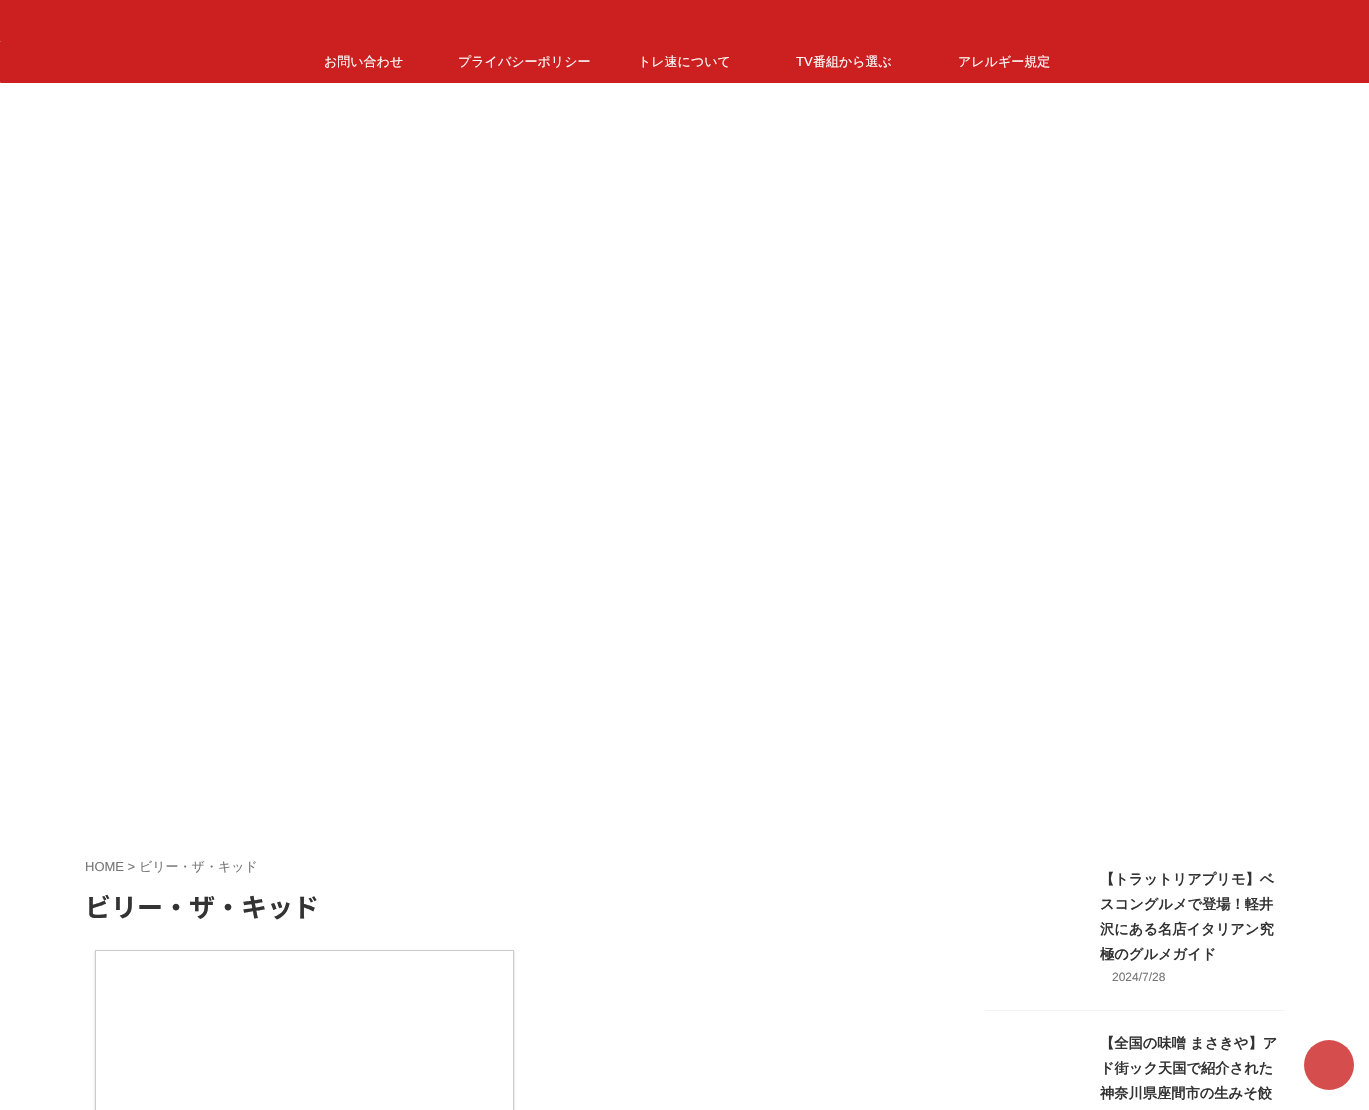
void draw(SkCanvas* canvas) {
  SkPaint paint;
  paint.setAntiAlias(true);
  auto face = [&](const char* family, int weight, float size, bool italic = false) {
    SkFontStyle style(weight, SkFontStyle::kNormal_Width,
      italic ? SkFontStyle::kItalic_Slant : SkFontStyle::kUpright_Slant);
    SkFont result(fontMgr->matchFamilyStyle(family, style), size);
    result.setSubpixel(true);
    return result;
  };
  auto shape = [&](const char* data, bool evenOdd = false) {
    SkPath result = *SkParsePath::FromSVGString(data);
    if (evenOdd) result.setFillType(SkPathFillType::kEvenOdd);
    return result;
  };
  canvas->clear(0xffffffff);
  paint.setColor(0xffcc2020);
  canvas->drawRect(SkRect::MakeXYWH(0, 0, 1369, 41), paint);
  canvas->drawRoundRect(SkRect::MakeXYWH(0, 41, 1369, 42), 1, 1, paint);
  canvas->drawRect(SkRect::MakeXYWH(1368, 41, 1, 1), paint);
  canvas->drawRect(SkRect::MakeXYWH(1368, 82, 1, 1), paint);
  canvas->save();
  canvas->clipPath(shape("M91 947H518V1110H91ZM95 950H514V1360H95Z", true), true);
  paint.setColor(0x33000000);
  paint.setMaskFilter(SkMaskFilter::MakeBlur(kNormal_SkBlurStyle, 1));
  canvas->drawRect(SkRect::MakeXYWH(95, 951, 419, 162), paint);
  paint.setMaskFilter(nullptr);
  canvas->restore();
  paint.setStroke(true);
  paint.setStrokeWidth(1);
  paint.setColor(0xffcccccc);
  canvas->drawRect(SkRect::MakeXYWH(95.5f, 950.5f, 418, 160), paint);
  paint.setStroke(false);
  paint.setColor(0xfff3f3f3);
  canvas->drawRect(SkRect::MakeXYWH(985, 1010, 300, 1), paint);
  paint.setColor(0xffd64d4d);
  canvas->drawCircle(1329, 1065, 25, paint);
  auto f0 = face("WenQuanYi Zen Hei", 500, 13);
  paint.setColor(0xffffffff);
  {
    const struct { const char* s; float x, y; } items[] = {
      {"お問い合わせ", 324, 66},
      {"プライバシーポリシー", 458, 66},
      {"トレ速について", 638, 66},
    };
    for (auto [s, x, y] : items) {
      canvas->drawString(s, x, y, f0, paint);
    }
  }
  auto f1 = face("Liberation Sans", 400, 13);
  canvas->drawString("TV", 796, 66, f1, paint);
  canvas->drawString("番組から選ぶ", 813, 66, f0, paint);
  canvas->drawString("アレルギー規定", 958, 66, f0, paint);
  paint.setColor(0xff777777);
  canvas->drawString("HOME >", 85, 871, f1, paint);
  canvas->drawString("ビリー・ザ・キッド", 139, 871, f0, paint);
  auto f2 = face("Noto Sans JP", 700, 26);
  paint.setColor(0xff333333);
  canvas->drawString("ビリー・ザ・キッド", 85, 917, f2, paint);
  auto f3 = face("WenQuanYi Zen Hei", 700, 14.25f);
  {
    const struct { const char* s; float x, y; } items[] = {
      {"【トラットリアプリモ】ベ", 1100, 884},
      {"スコングルメで登場！軽井", 1100, 909},
      {"沢にある名店イタリアン究", 1100, 934},
      {"極のグルメガイド", 1100, 959},
    };
    for (auto [s, x, y] : items) {
      canvas->drawString(s, x, y, f3, paint);
    }
  }
  auto f4 = face("Liberation Sans", 400, 12);
  paint.setColor(0xff777777);
  canvas->drawString("2024/7/28", 1112, 981, f4, paint);
  paint.setColor(0xff333333);
  {
    const struct { const char* s; float x, y; } items[] = {
      {"【全国の味噌 まさきや】ア", 1100, 1048},
      {"ド街ック天国で紹介された", 1100, 1073},
      {"神奈川県座間市の生みそ餃", 1100, 1098},
    };
    for (auto [s, x, y] : items) {
      canvas->drawString(s, x, y, f3, paint);
    }
  }
}
